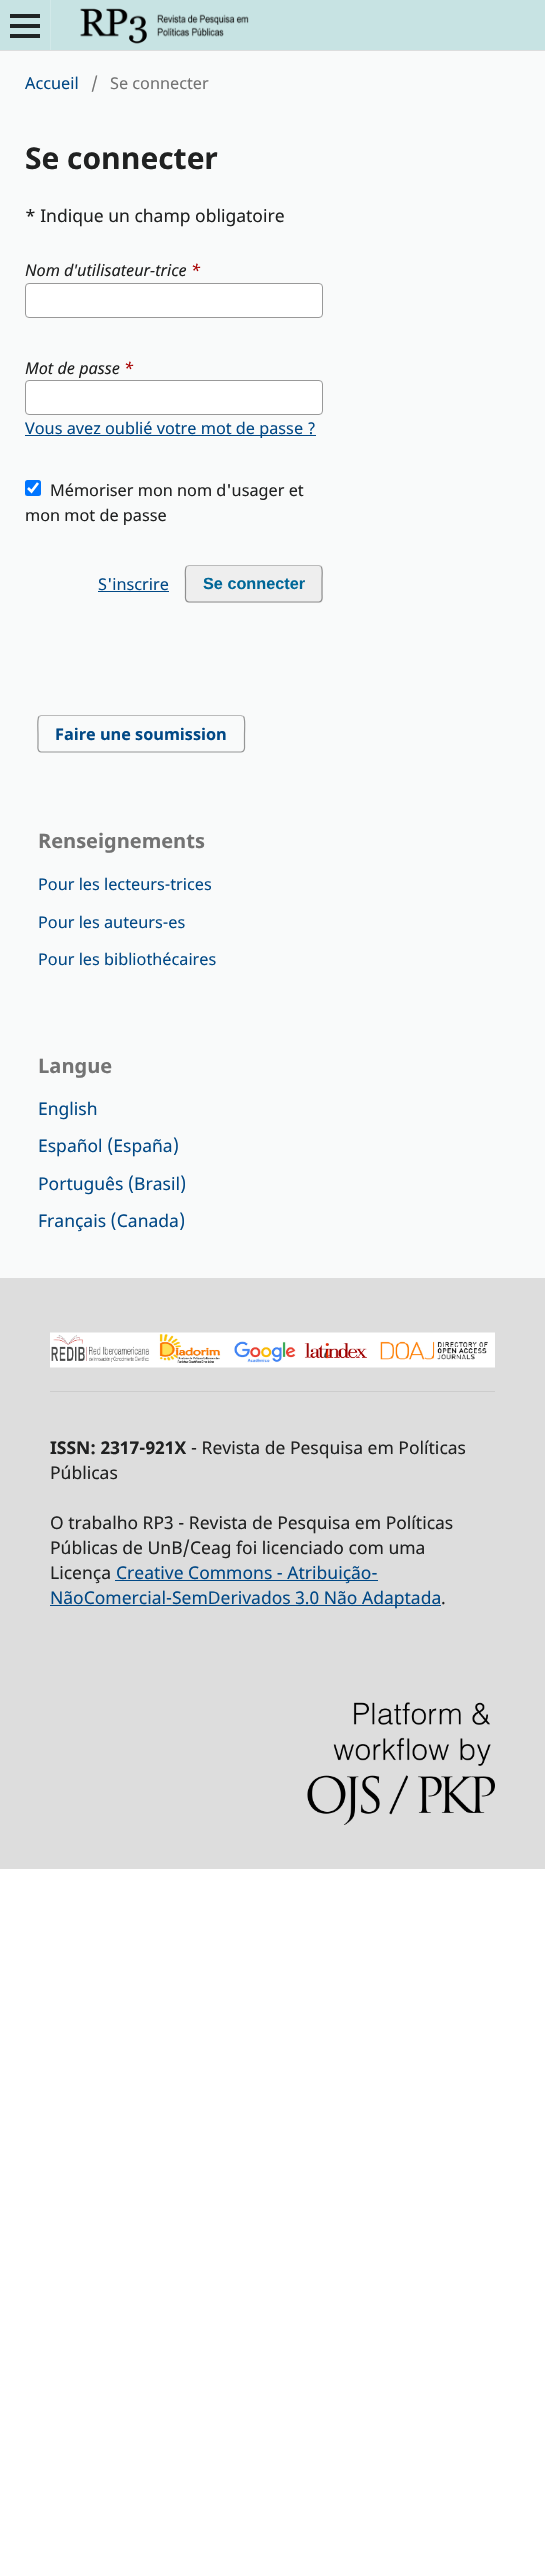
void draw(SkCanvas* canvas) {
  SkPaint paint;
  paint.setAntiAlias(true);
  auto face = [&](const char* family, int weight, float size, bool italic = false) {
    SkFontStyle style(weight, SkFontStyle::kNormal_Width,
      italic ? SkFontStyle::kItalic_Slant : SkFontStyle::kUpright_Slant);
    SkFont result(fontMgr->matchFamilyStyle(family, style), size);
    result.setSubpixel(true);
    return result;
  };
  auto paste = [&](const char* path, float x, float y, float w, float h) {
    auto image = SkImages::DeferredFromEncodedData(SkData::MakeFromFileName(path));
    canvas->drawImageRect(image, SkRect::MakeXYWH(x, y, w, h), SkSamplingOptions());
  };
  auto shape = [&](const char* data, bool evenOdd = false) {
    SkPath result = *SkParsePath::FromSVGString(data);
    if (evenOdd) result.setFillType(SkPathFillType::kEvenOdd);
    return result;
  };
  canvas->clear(0xffffffff);
  {
    const struct { float x, y, w, h; SkColor color; } items[] = {
      {0, 51, 545, 1227, 0xfff9fafa},
      {0, 0, 545, 50, 0xffc7e3e3},
      {0, 50, 545, 1, 0xffdddddd},
      {50, 0, 1, 50, 0xffd2e9e9},
      {10, 34, 30, 4, 0xff202424},
      {10, 14, 30, 4, 0xff202424},
      {10, 24, 30, 4, 0xff202424},
    };
    for (auto [x, y, w, h, color] : items) {
      paint.setColor(color);
      canvas->drawRect(SkRect::MakeXYWH(x, y, w, h), paint);
    }
  }
  paste("img/1.png", 80, 8, 169, 36);
  paint.setColor(0xffffffff);
  canvas->drawRoundRect(SkRect::MakeXYWH(25.5f, 283.5f, 297, 34), 3.5f, 3.5f, paint);
  paint.setStroke(true);
  paint.setStrokeWidth(1);
  paint.setColor(0xff999999);
  canvas->drawRoundRect(SkRect::MakeXYWH(25.5f, 283.5f, 297, 34), 3.5f, 3.5f, paint);
  paint.setStroke(false);
  paint.setColor(0xffffffff);
  canvas->drawRoundRect(SkRect::MakeXYWH(25.5f, 380.5f, 297, 34), 3.5f, 3.5f, paint);
  paint.setStroke(true);
  paint.setColor(0xff999999);
  canvas->drawRoundRect(SkRect::MakeXYWH(25.5f, 380.5f, 297, 34), 3.5f, 3.5f, paint);
  paint.setStroke(false);
  paint.setColor(0xff024986);
  canvas->drawRect(SkRect::MakeXYWH(25, 435, 291, 1), paint);
  paint.setColor(0xff0075ff);
  canvas->drawRoundRect(SkRect::MakeXYWH(25, 480, 16, 16), 2.5f, 2.5f, paint);
  paint.setStroke(true);
  paint.setStrokeWidth(2.6f);
  paint.setColor(0xffffffff);
  canvas->drawPath(shape("M28 488L31.5 491.5L38 483"), paint);
  paint.setStroke(false);
  paint.setColor(0xff024986);
  canvas->drawRect(SkRect::MakeXYWH(98, 591, 71, 1), paint);
  paint.setColor(0xffeeeeee);
  canvas->drawRoundRect(SkRect::MakeXYWH(185, 565, 138, 38), 4, 4, paint);
  paint.setStroke(true);
  paint.setStrokeWidth(1.2f);
  paint.setColor(0xffbbbbbb);
  canvas->drawPath(shape("M186.5 566.5L189 565.5H319L321 566.5"), paint);
  paint.setColor(0x66000000);
  canvas->drawPath(shape("M321 566.5C323 569 322 576 322 579V594C322 596 323 602 319 602H189C184.5 602 185.5 596 185.5 594V579C185.5 576 184.5 569 186.5 566.5"), paint);
  paint.setColor(0xffbbbbbb);
  canvas->drawPath(shape("M39 716.5L41 715.5H241L243.5 716.5"), paint);
  paint.setColor(0x66000000);
  canvas->drawPath(shape("M243.5 716.5C245.5 718.5 244.5 730.5 244.5 734V744C244.5 746 245.5 752 241 752H41C37 752 38 746 38 744V734C38 730.5 37 718.5 39 716.5"), paint);
  paint.setStroke(false);
  paint.setColor(0xffdddddd);
  canvas->drawRect(SkRect::MakeXYWH(0, 1278, 545, 591), paint);
  paste("img/2.png", 50, 1332, 445, 36);
  {
    const struct { float x, y, w, h; SkColor color; } items[] = {
      {50, 1391, 445, 1, 0xffcccccc},
      {115, 1580, 263, 1, 0xff024986},
      {50, 1605, 391, 1, 0xff024986},
    };
    for (auto [x, y, w, h, color] : items) {
      paint.setColor(color);
      canvas->drawRect(SkRect::MakeXYWH(x, y, w, h), paint);
    }
  }
  paste("img/3.png", 307, 1702, 188, 123);
  auto f0 = face("Noto Sans", 400, 16.25f);
  canvas->drawString("Accueil", 25, 89, f0, paint);
  paint.setColor(0xff737373);
  canvas->drawString("/", 91, 89, f0, paint);
  canvas->drawString("Se connecter", 110, 89, f0, paint);
  auto f1 = face("Noto Sans", 700, 30);
  paint.setColor(0xff202121);
  canvas->drawString("Se connecter", 25, 169, f1, paint);
  auto f2 = face("Noto Sans", 400, 17.5f);
  canvas->drawString("* Indique un champ obligatoire", 25, 222, f2, paint);
  auto f3 = face("Noto Sans", 400, 16.25f, true);
  canvas->drawString("Nom d'utilisateur-trice", 25, 276, f3, paint);
  paint.setColor(0xffa80000);
  canvas->drawString("*", 191, 276, f3, paint);
  paint.setColor(0xff202121);
  canvas->drawString("Mot de passe", 25, 374, f3, paint);
  paint.setColor(0xffa80000);
  canvas->drawString("*", 124, 374, f3, paint);
  paint.setColor(0xff024986);
  canvas->drawString("Vous avez oublié votre mot de passe ?", 25, 434, f0, paint);
  paint.setColor(0xff202121);
  canvas->drawString("Mémoriser mon nom d'usager et", 50, 496, f0, paint);
  canvas->drawString("mon mot de passe", 25, 521, f0, paint);
  paint.setColor(0xff024986);
  canvas->drawString("S'inscrire", 98, 590, f0, paint);
  auto f4 = face("Liberation Sans", 700, 16.25f);
  paint.setColor(0xff006798);
  canvas->drawString("Se connecter", 203, 589, f4, paint);
  auto f5 = face("Noto Sans", 700, 16.25f);
  paint.setColor(0xff024986);
  canvas->drawString("Faire une soumission", 55, 740, f5, paint);
  auto f6 = face("Noto Sans", 700, 20);
  paint.setColor(0xff737373);
  canvas->drawString("Renseignements", 38, 848, f6, paint);
  paint.setColor(0xff024986);
  {
    const struct { const char* s; float x, y; } items[] = {
      {"Pour les lecteurs-trices", 38, 890},
      {"Pour les auteurs-es", 38, 928},
      {"Pour les bibliothécaires", 38, 965},
    };
    for (auto [s, x, y] : items) {
      canvas->drawString(s, x, y, f0, paint);
    }
  }
  paint.setColor(0xff737373);
  canvas->drawString("Langue", 38, 1073, f6, paint);
  paint.setColor(0xff024986);
  {
    const struct { const char* s; float x, y; } items[] = {
      {"English", 38, 1115},
      {"Español (España)", 38, 1152},
      {"Português (Brasil)", 38, 1190},
      {"Français (Canada)", 38, 1227},
    };
    for (auto [s, x, y] : items) {
      canvas->drawString(s, x, y, f2, paint);
    }
  }
  auto f7 = face("Noto Sans", 700, 17.5f);
  paint.setColor(0xff202121);
  canvas->drawString("ISSN: 2317-921X", 50, 1454, f7, paint);
  {
    const struct { const char* s; float x, y; } items[] = {
      {"- Revista de Pesquisa em Políticas", 191, 1454},
      {"Públicas", 50, 1479},
      {"O trabalho RP3 - Revista de Pesquisa em Políticas", 50, 1529},
      {"Públicas de UnB/Ceag foi licenciado com uma", 50, 1554},
      {"Licença", 50, 1579},
    };
    for (auto [s, x, y] : items) {
      canvas->drawString(s, x, y, f2, paint);
    }
  }
  paint.setColor(0xff024986);
  canvas->drawString("Creative Commons - Atribuição-", 116, 1579, f2, paint);
  canvas->drawString("NãoComercial-SemDerivados 3.0 Não Adaptada", 50, 1604, f2, paint);
  paint.setColor(0xff202121);
  canvas->drawString(".", 441, 1604, f2, paint);
}
